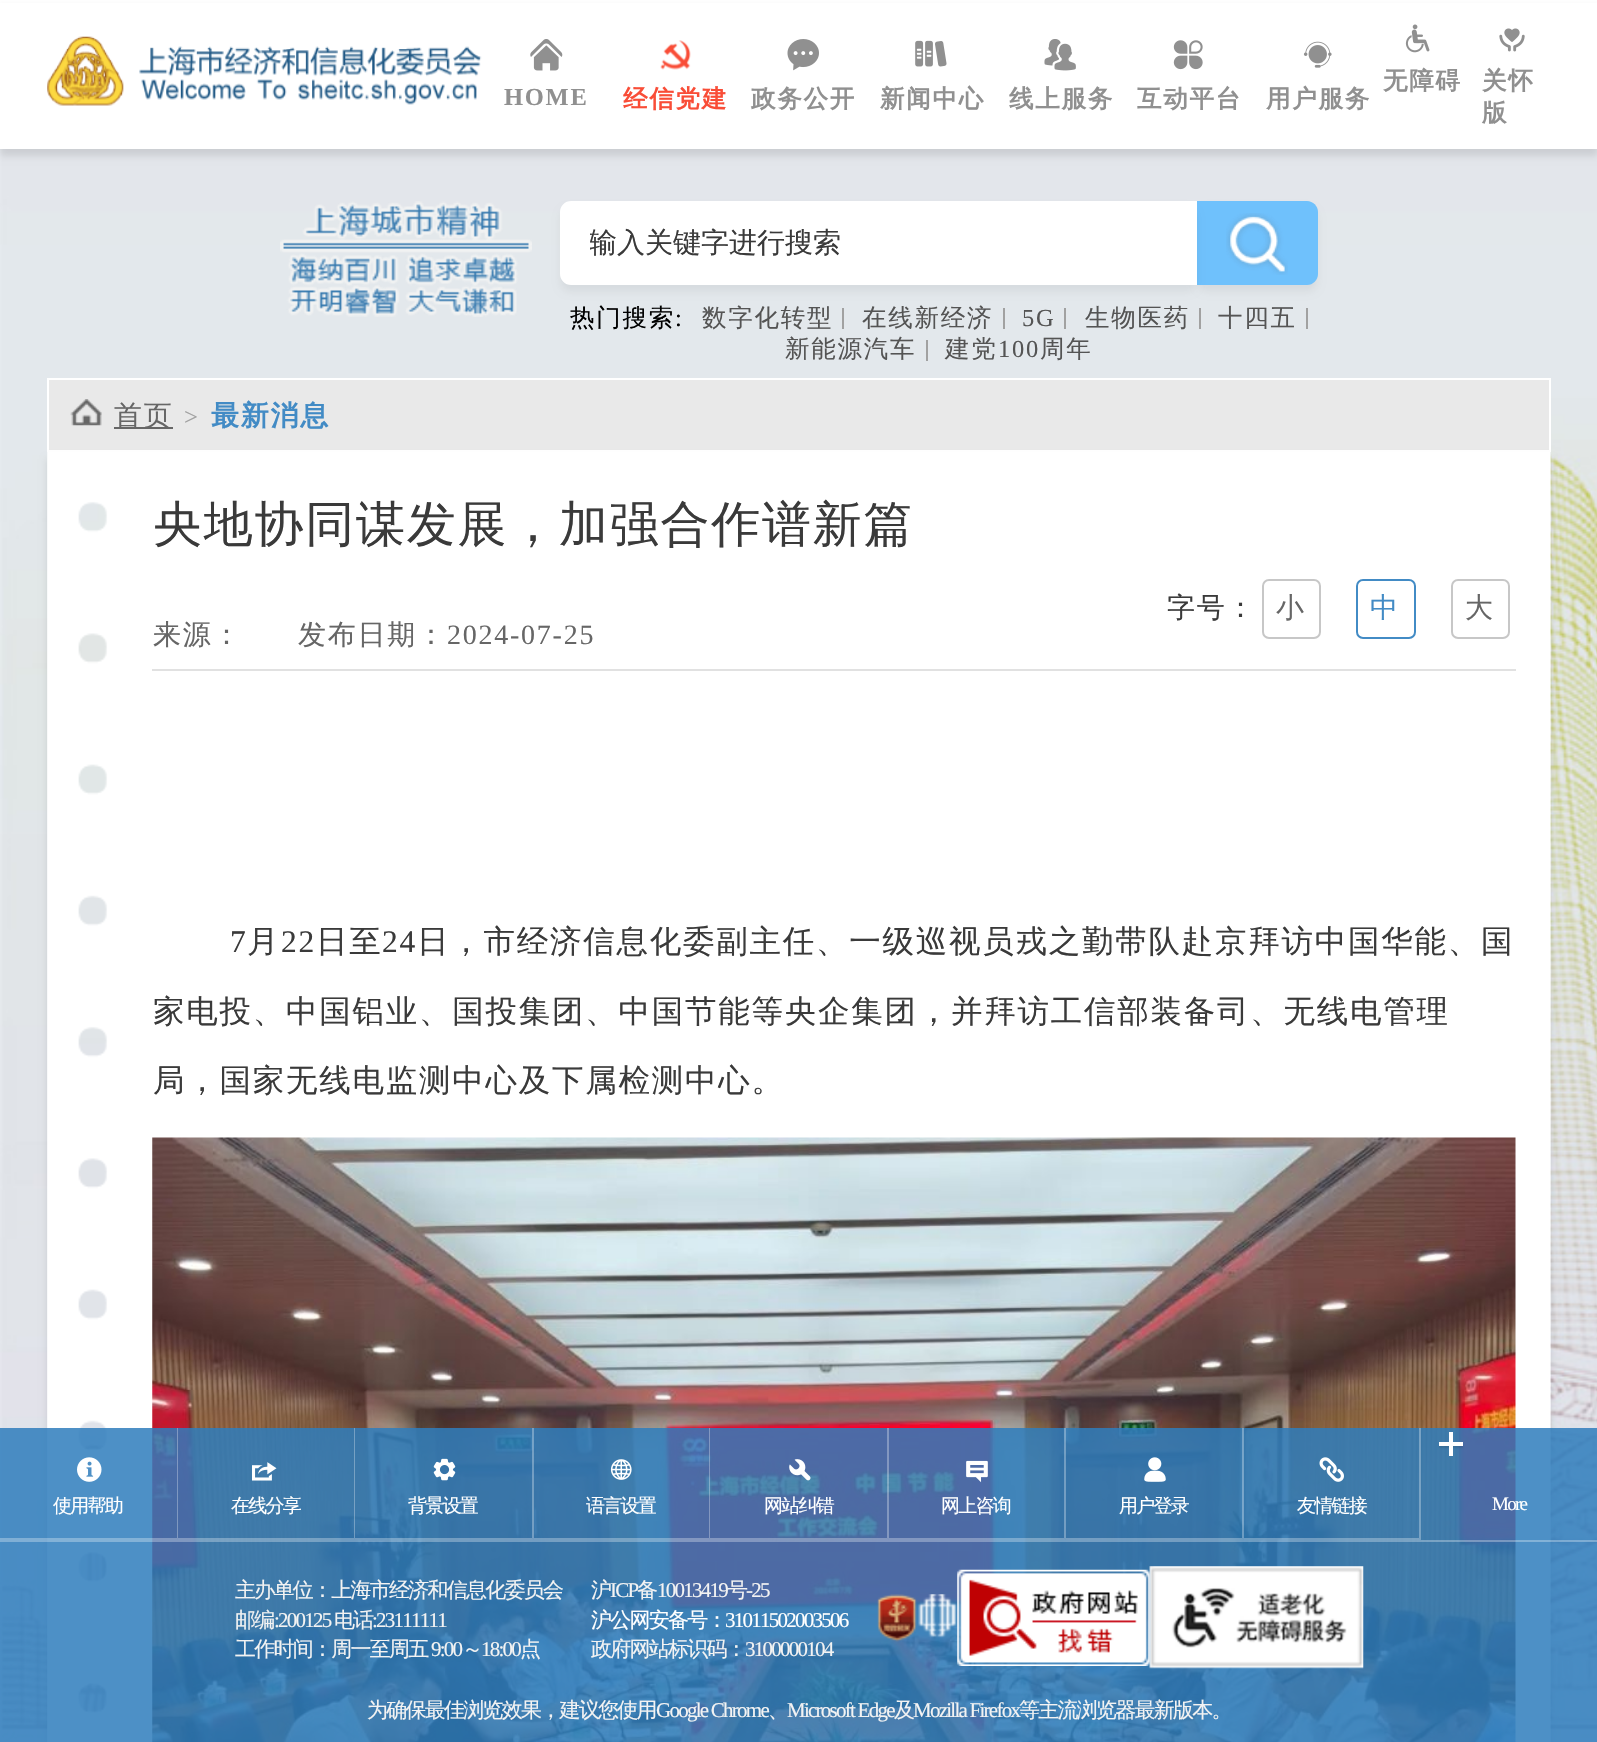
void draw(SkCanvas* canvas) {
  SkPaint paint;
  paint.setAntiAlias(true);
  auto face = [&](const char* family, int weight, float size, bool italic = false) {
    SkFontStyle style(weight, SkFontStyle::kNormal_Width,
      italic ? SkFontStyle::kItalic_Slant : SkFontStyle::kUpright_Slant);
    SkFont result(fontMgr->matchFamilyStyle(family, style), size);
    result.setSubpixel(true);
    return result;
  };
  auto writeSpaced = [&](const char* s, float x, float y, const SkFont& font, const SkPaint& ink, float letter, float word) {
    std::vector<SkGlyphID> glyphs(font.countText(s, strlen(s), SkTextEncoding::kUTF8));
    std::vector<float> xs(glyphs.size());
    font.textToGlyphs(s, strlen(s), SkTextEncoding::kUTF8, glyphs);
    font.getXPos(glyphs, xs, x);
    float extra = 0;
    for (size_t i = 0; i < glyphs.size(); i++) {
      xs[i] += extra;
      extra += letter + word * (glyphs[i] == font.unicharToGlyph(' '));
    }
    canvas->drawTextBlob(SkTextBlob::MakeFromPosHGlyphs(glyphs, xs, y, font), 0, 0, ink);
  };
  auto paste = [&](const char* path, float x, float y, float w, float h) {
    auto image = SkImages::DeferredFromEncodedData(SkData::MakeFromFileName(path));
    canvas->drawImageRect(image, SkRect::MakeXYWH(x, y, w, h), SkSamplingOptions());
  };
  auto shape = [&](const char* data, bool evenOdd = false) {
    SkPath result = *SkParsePath::FromSVGString(data);
    if (evenOdd) result.setFillType(SkPathFillType::kEvenOdd);
    return result;
  };
  canvas->clear(0xffffffff);
  paste("img/1.png", 0, 149, 1597, 1593);
  paint.setColor(0x1a000000);
  paint.setMaskFilter(SkMaskFilter::MakeBlur(kNormal_SkBlurStyle, 3.5f));
  canvas->drawRect(SkRect::MakeXYWH(0, 7, 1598, 149), paint);
  paint.setMaskFilter(nullptr);
  paint.setColor(0xffffffff);
  canvas->drawRect(SkRect::MakeXYWH(0, 3, 1597, 146), paint);
  paste("img/2.png", 47, 36, 435, 70);
  paste("img/3.png", 530, 39, 33, 32);
  paste("img/4.png", 660, 40, 31, 30);
  paste("img/5.png", 787, 39, 32, 32);
  paste("img/6.png", 915, 40, 32, 27);
  paste("img/7.png", 1044, 39, 32, 32);
  paste("img/8.png", 1173, 40, 30, 30);
  paste("img/9.png", 1303, 41, 29, 27);
  paste("img/10.png", 1405, 24, 25, 29);
  paste("img/11.png", 1499, 28, 26, 24);
  paste("img/12.png", 280, 201, 252, 116);
  paint.setColor(0x0d000000);
  paint.setMaskFilter(SkMaskFilter::MakeBlur(kNormal_SkBlurStyle, 3.5f));
  canvas->drawRoundRect(SkRect::MakeXYWH(1197, 208, 121, 84), 11, 11, paint);
  paint.setMaskFilter(nullptr);
  paint.setColor(0xff6fc1fc);
  canvas->drawPath(shape("M1197 201H1307C1313 201 1318 206 1318 212V274C1318 280 1313 285 1307 285H1197Z"), paint);
  paint.setColor(0x0d000000);
  paint.setMaskFilter(SkMaskFilter::MakeBlur(kNormal_SkBlurStyle, 3.5f));
  canvas->drawRoundRect(SkRect::MakeXYWH(560, 208, 637, 84), 11, 11, paint);
  paint.setMaskFilter(nullptr);
  paint.setColor(0xffffffff);
  canvas->drawPath(shape("M571 202H1196V284H571C565.5 284 561 279.5 561 274V212C561 206.5 565.5 202 571 202Z"), paint);
  paint.setStroke(true);
  paint.setStrokeWidth(2);
  canvas->drawPath(shape("M571 202H1196V284H571C565.5 284 561 279.5 561 274V212C561 206.5 565.5 202 571 202Z"), paint);
  paste("img/13.png", 1226, 213, 62, 62);
  paint.setStroke(false);
  {
    const struct { float x, y, w, h; SkColor color; } items[] = {
      {842, 308, 2, 21, 0xffa1a1a1},
      {1003, 308, 2, 21, 0xffa1a1a1},
      {1064, 308, 2, 21, 0xffa1a1a1},
      {1199, 308, 2, 21, 0xffa1a1a1},
      {1306, 308, 2, 21, 0xffa1a1a1},
      {926, 340, 2, 21, 0xffa1a1a1},
    };
    for (auto [x, y, w, h, color] : items) {
      paint.setColor(color);
      canvas->drawRect(SkRect::MakeXYWH(x, y, w, h), paint);
    }
  }
  paint.setColor(0xffe9e9e9);
  canvas->drawRect(SkRect::MakeXYWH(48, 379, 1502, 72), paint);
  paint.setStroke(true);
  paint.setColor(0xffffffff);
  canvas->drawRect(SkRect::MakeXYWH(48, 379, 1502, 72), paint);
  paste("img/14.png", 70, 399, 32, 27);
  paint.setStroke(false);
  paint.setColor(0xff666666);
  canvas->drawRect(SkRect::MakeXYWH(114, 427, 59, 2), paint);
  canvas->save();
  canvas->clipPath(shape("M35 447H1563V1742H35ZM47 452H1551V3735H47Z", true), true);
  paint.setColor(0x1a000000);
  paint.setMaskFilter(SkMaskFilter::MakeBlur(kNormal_SkBlurStyle, 3.5f));
  canvas->drawRect(SkRect::MakeXYWH(47, 459, 1504, 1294), paint);
  paint.setMaskFilter(nullptr);
  canvas->restore();
  paste("img/15.png", 47, 452, 1504, 1290);
  paint.setColor(0xffe1e1e1);
  canvas->drawRect(SkRect::MakeXYWH(152, 669, 1364, 2), paint);
  paint.setStroke(true);
  paint.setColor(0xffc7c7c7);
  canvas->drawRoundRect(SkRect::MakeXYWH(1263, 580, 57, 58), 6, 6, paint);
  paint.setColor(0xff428bc5);
  canvas->drawRoundRect(SkRect::MakeXYWH(1357, 580, 58, 58), 6, 6, paint);
  paint.setColor(0xffc7c7c7);
  canvas->drawRoundRect(SkRect::MakeXYWH(1452, 580, 57, 58), 6, 6, paint);
  paste("img/16.png", 152, 1137, 1364, 605);
  paint.setStroke(false);
  paint.setColor(0xd92e7dbc);
  canvas->drawRect(SkRect::MakeXYWH(0, 1428, 1597, 314), paint);
  paint.setColor(0x4dffffff);
  canvas->drawRect(SkRect::MakeXYWH(0, 1540, 1597, 2), paint);
  canvas->drawPath(shape("M178 1428V1540L177 1538V1428Z"), paint);
  canvas->drawPath(shape("M178 1540H0V1538H177Z"), paint);
  paste("img/17.png", 77, 1457, 25, 25);
  canvas->drawPath(shape("M355 1428V1540L354 1538V1428Z"), paint);
  canvas->drawPath(shape("M355 1540H178V1538H354Z"), paint);
  paste("img/18.png", 252, 1462, 25, 19);
  canvas->drawPath(shape("M534 1428V1540L532 1538V1428Z"), paint);
  canvas->drawPath(shape("M534 1540H355V1538H532Z"), paint);
  paste("img/19.png", 433, 1458, 23, 23);
  canvas->drawPath(shape("M710 1428V1540L709 1538V1428Z"), paint);
  canvas->drawPath(shape("M710 1540H534V1538H709Z"), paint);
  paste("img/20.png", 610, 1459, 22, 21);
  canvas->drawPath(shape("M889 1428V1540L887 1538V1428Z"), paint);
  canvas->drawPath(shape("M889 1540H710V1538H887Z"), paint);
  paste("img/21.png", 789, 1459, 22, 22);
  canvas->drawPath(shape("M1066 1428V1540L1064 1538V1428Z"), paint);
  canvas->drawPath(shape("M1066 1540H889V1538H1064Z"), paint);
  paste("img/22.png", 966, 1460, 22, 23);
  canvas->drawPath(shape("M1244 1428V1540L1242 1538V1428Z"), paint);
  canvas->drawPath(shape("M1244 1540H1066V1538H1242Z"), paint);
  paste("img/23.png", 1144, 1457, 22, 25);
  canvas->drawPath(shape("M1421 1428V1540L1419 1538V1428Z"), paint);
  canvas->drawPath(shape("M1421 1540H1244V1538H1419Z"), paint);
  paste("img/24.png", 1319, 1457, 25, 25);
  paint.setColor(0x1a000000);
  paint.setMaskFilter(SkMaskFilter::MakeBlur(kNormal_SkBlurStyle, 1));
  canvas->drawRect(SkRect::MakeXYWH(1439, 1444, 24, 4), paint);
  paint.setMaskFilter(nullptr);
  paint.setColor(0xffffffff);
  canvas->drawRect(SkRect::MakeXYWH(1439, 1442, 24, 4), paint);
  canvas->drawRect(SkRect::MakeXYWH(1449, 1432, 4, 24), paint);
  paste("img/25.png", 877, 1594, 40, 48);
  paste("img/26.png", 918, 1594, 39, 44);
  paste("img/27.png", 957, 1569, 193, 97);
  paste("img/28.png", 1149, 1566, 215, 103);
  auto f0 = face("Liberation Serif", 700, 24.5f);
  paint.setColor(0xff909090);
  writeSpaced("HOME", 504, 105, f0, paint, 1.75f, 0);
  auto f1 = face("WenQuanYi Zen Hei", 700, 24.5f);
  paint.setColor(0xfff94d37);
  writeSpaced("经信党建", 623, 107, f1, paint, 1.75f, 0);
  paint.setColor(0xff909090);
  {
    const struct { const char* s; float x, y; } items[] = {
      {"政务公开", 751, 107},
      {"新闻中心", 880, 107},
      {"线上服务", 1009, 107},
      {"互动平台", 1137, 107},
      {"用户服务", 1266, 107},
      {"无障碍", 1383, 89},
      {"关怀", 1482, 89},
      {"版", 1482, 121},
    };
    for (auto [s, x, y] : items) {
      writeSpaced(s, x, y, f1, paint, 1.75f, 0);
    }
  }
  canvas->save();
  canvas->clipRect(SkRect::MakeXYWH(590, 226, 602, 37));
  auto f2 = face("WenQuanYi Zen Hei", 500, 28);
  paint.setColor(0xff3a3a3a);
  canvas->drawString("输入关键字进行搜索", 589, 252, f2, paint);
  canvas->restore();
  auto f3 = face("WenQuanYi Zen Hei", 500, 24.5f);
  paint.setColor(0xff000000);
  writeSpaced("热门搜索", 570, 326, f3, paint, 1.75f, 0);
  auto f4 = face("Liberation Serif", 400, 24.5f);
  writeSpaced(":", 675, 326, f4, paint, 1.75f, 0);
  paint.setColor(0xff545454);
  writeSpaced("数字化转型", 702, 326, f3, paint, 1.75f, 0);
  writeSpaced("在线新经济", 862, 326, f3, paint, 1.75f, 0);
  writeSpaced("5G", 1022, 326, f4, paint, 1.75f, 0);
  {
    const struct { const char* s; float x, y; } items[] = {
      {"生物医药", 1085, 326},
      {"十四五", 1218, 326},
      {"新能源汽车", 785, 357},
      {"建党", 945, 357},
    };
    for (auto [s, x, y] : items) {
      writeSpaced(s, x, y, f3, paint, 1.75f, 0);
    }
  }
  writeSpaced("100", 998, 357, f4, paint, 1.75f, 0);
  writeSpaced("周年", 1040, 357, f3, paint, 1.75f, 0);
  paint.setColor(0xff666666);
  writeSpaced("首页", 114, 425, f2, paint, 1.75f, 0);
  paint.setColor(0xffa1a1a1);
  writeSpaced(">", 184, 425, f4, paint, 1.75f, 0);
  auto f5 = face("WenQuanYi Zen Hei", 700, 28);
  paint.setColor(0xff428bc5);
  writeSpaced("最新消息", 211, 425, f5, paint, 1.75f, 0);
  auto f6 = face("WenQuanYi Zen Hei", 500, 49);
  paint.setColor(0xff3a3a3a);
  writeSpaced("央地协同谋发展，加强合作谱新篇", 153, 541, f6, paint, 1.75f, 0);
  writeSpaced("字号：", 1167, 617, f2, paint, 1.75f, 0);
  paint.setColor(0xff666666);
  writeSpaced("小", 1276, 617, f2, paint, 1.75f, 0);
  paint.setColor(0xff428bc5);
  writeSpaced("中", 1370, 617, f2, paint, 1.75f, 0);
  paint.setColor(0xff666666);
  {
    const struct { const char* s; float x, y; } items[] = {
      {"大", 1465, 617},
      {"来源：", 153, 644},
      {"发布日期：", 298, 644},
    };
    for (auto [s, x, y] : items) {
      writeSpaced(s, x, y, f2, paint, 1.75f, 0);
    }
  }
  auto f7 = face("Liberation Serif", 400, 28);
  writeSpaced("2024-07-25", 447, 644, f7, paint, 1.75f, 0);
  auto f8 = face("Liberation Serif", 400, 31.5f);
  paint.setColor(0xff3a3a3a);
  writeSpaced("7", 230, 952, f8, paint, 1.75f, 0);
  auto f9 = face("WenQuanYi Zen Hei", 500, 31.5f);
  writeSpaced("月", 247, 952, f9, paint, 1.75f, 0);
  writeSpaced("22", 281, 952, f8, paint, 1.75f, 0);
  writeSpaced("日至", 316, 952, f9, paint, 1.75f, 0);
  writeSpaced("24", 382, 952, f8, paint, 1.75f, 0);
  {
    const struct { const char* s; float x, y; } items[] = {
      {"日，市经济信息化委副主任、一级巡视员戎之勤带队赴京拜访中国华能、国", 417, 952},
      {"家电投、中国铝业、国投集团、中国节能等央企集团，并拜访工信部装备司、无线电管理", 153, 1022},
      {"局，国家无线电监测中心及下属检测中心。", 153, 1091},
    };
    for (auto [s, x, y] : items) {
      writeSpaced(s, x, y, f9, paint, 1.75f, 0);
    }
  }
  auto f10 = face("WenQuanYi Zen Hei", 500, 19);
  paint.setColor(0xffffffff);
  {
    const struct { const char* s; float x, y; } items[] = {
      {"使用帮助", 53, 1512},
      {"在线分享", 231, 1512},
      {"背景设置", 408, 1512},
      {"语言设置", 586, 1512},
      {"网站纠错", 764, 1512},
      {"网上咨询", 941, 1512},
      {"用户登录", 1119, 1512},
      {"友情链接", 1297, 1512},
    };
    for (auto [s, x, y] : items) {
      writeSpaced(s, x, y, f10, paint, -1.75f, 0);
    }
  }
  auto f11 = face("Liberation Serif", 400, 19);
  writeSpaced("More", 1492, 1510, f11, paint, -1.75f, 0);
  auto f12 = face("WenQuanYi Zen Hei", 500, 21);
  paint.setColor(0xfff3f3f3);
  writeSpaced("主办单位：上海市经济和信息化委员会", 235, 1597, f12, paint, -1.75f, 0);
  writeSpaced("邮编", 235, 1627, f12, paint, -1.75f, 0);
  auto f13 = face("Liberation Serif", 400, 21);
  writeSpaced(":200125", 274, 1627, f13, paint, -1.75f, 0);
  writeSpaced("电话", 334, 1627, f12, paint, -1.75f, 0);
  writeSpaced(":23111111", 372, 1627, f13, paint, -1.75f, 0);
  writeSpaced("工作时间：周一至周五", 235, 1656, f12, paint, -1.75f, 0);
  writeSpaced("9:00", 431, 1656, f13, paint, -1.75f, 0);
  writeSpaced("～", 462, 1656, f12, paint, -1.75f, 0);
  writeSpaced("18:00", 481, 1656, f13, paint, -1.75f, 0);
  writeSpaced("点", 520, 1656, f12, paint, -1.75f, 0);
  writeSpaced("沪", 591, 1597, f12, paint, -1.75f, 0);
  writeSpaced("ICP", 610, 1597, f13, paint, -1.75f, 0);
  writeSpaced("备", 637, 1597, f12, paint, -1.75f, 0);
  writeSpaced("10013419", 657, 1597, f13, paint, -1.75f, 0);
  writeSpaced("号", 727, 1597, f12, paint, -1.75f, 0);
  writeSpaced("-25", 746, 1597, f13, paint, -1.75f, 0);
  paint.setColor(0xffffffff);
  writeSpaced("沪公网安备号：", 591, 1627, f12, paint, -1.75f, 0);
  writeSpaced("31011502003506", 725, 1627, f13, paint, -1.75f, 0);
  paint.setColor(0xfff3f3f3);
  writeSpaced("政府网站标识码：", 591, 1656, f12, paint, -1.75f, 0);
  writeSpaced("3100000104", 745, 1656, f13, paint, -1.75f, 0);
  writeSpaced("为确保最佳浏览效果，建议您使用", 367, 1717, f12, paint, -1.75f, 0);
  writeSpaced("Google Chrome", 656, 1717, f13, paint, -1.75f, 0);
  writeSpaced("、", 768, 1717, f12, paint, -1.75f, 0);
  writeSpaced("Microsoft Edge", 787, 1717, f13, paint, -1.75f, 0);
  writeSpaced("及", 894, 1717, f12, paint, -1.75f, 0);
  writeSpaced("Mozilla Firefox", 913, 1717, f13, paint, -1.75f, 0);
  writeSpaced("等主流浏览器最新版本。", 1019, 1717, f12, paint, -1.75f, 0);
}
